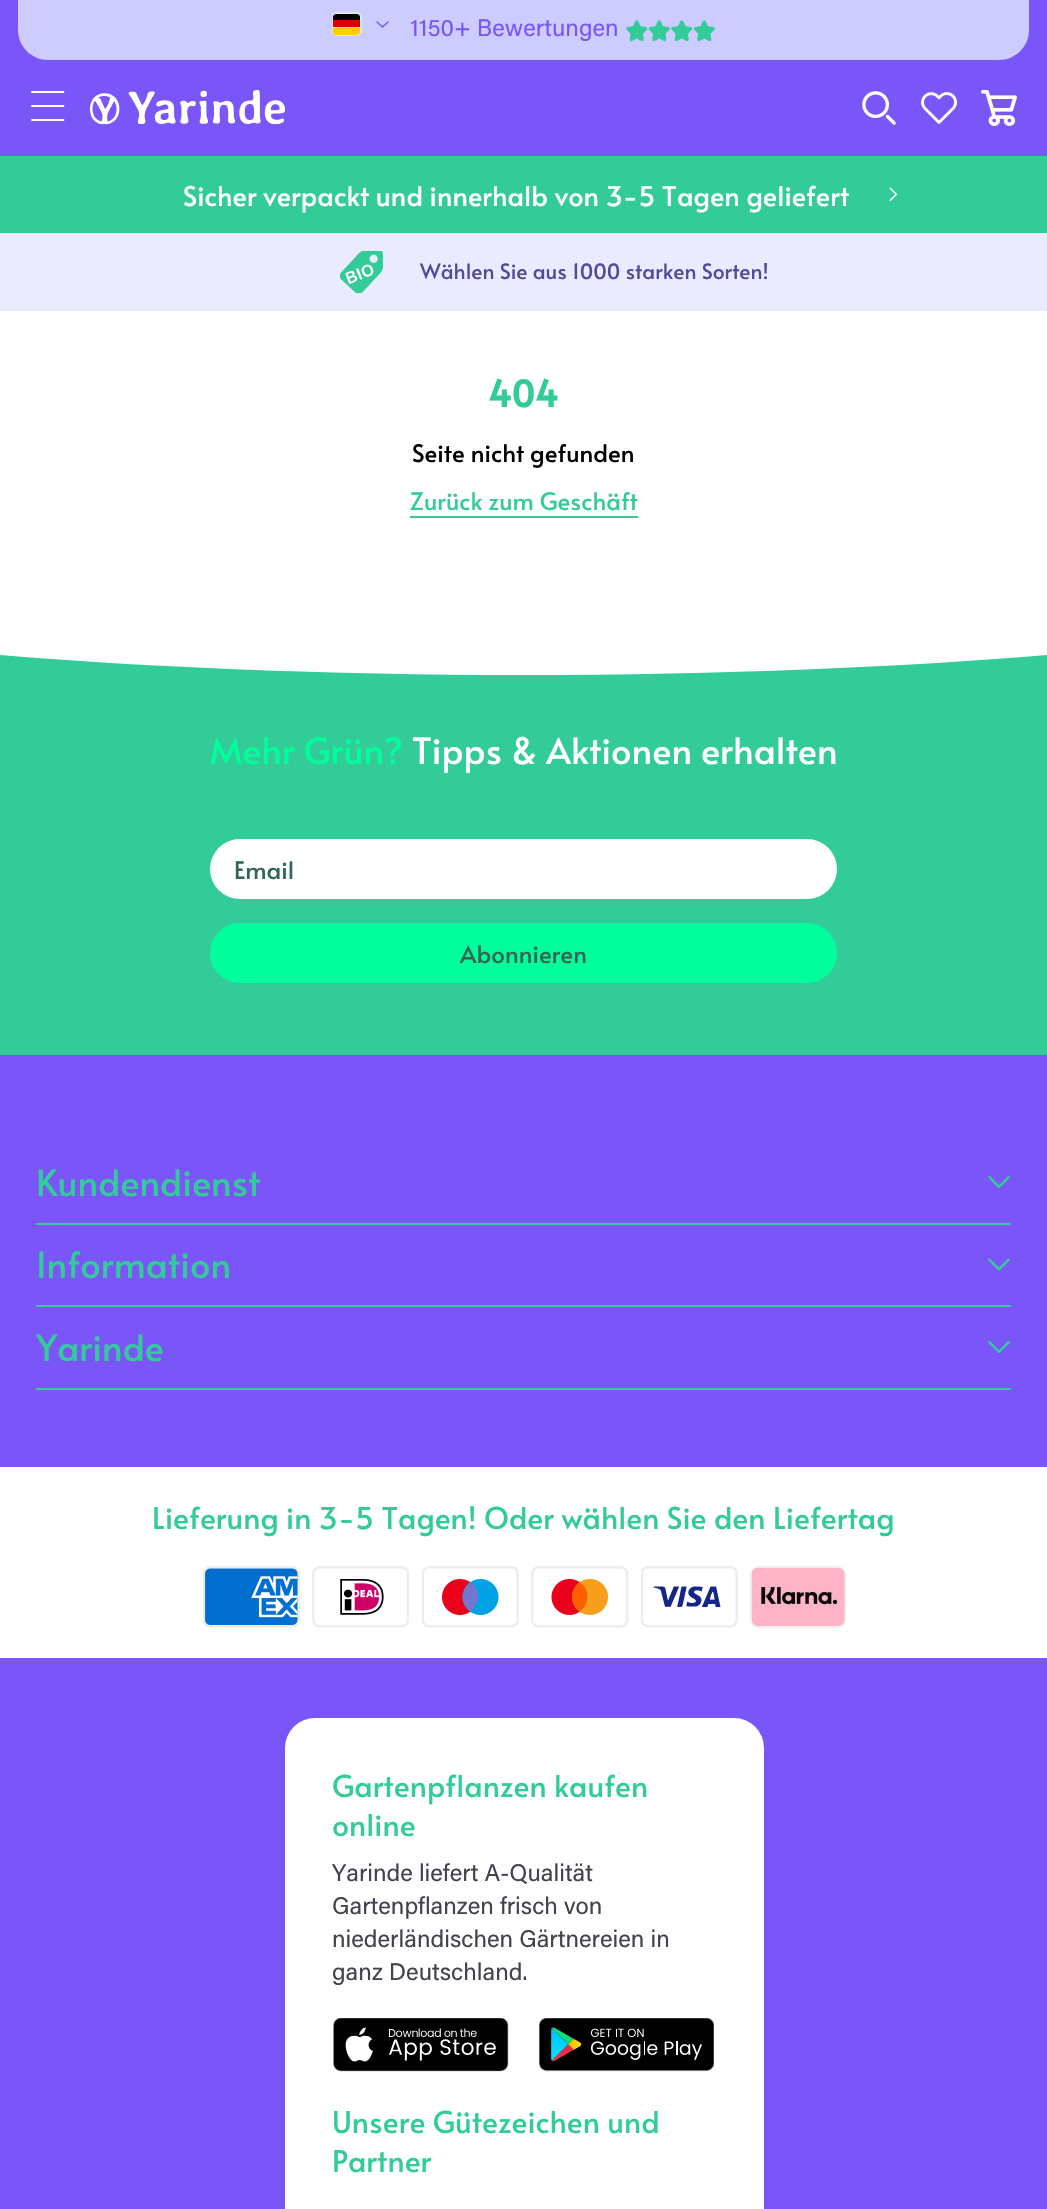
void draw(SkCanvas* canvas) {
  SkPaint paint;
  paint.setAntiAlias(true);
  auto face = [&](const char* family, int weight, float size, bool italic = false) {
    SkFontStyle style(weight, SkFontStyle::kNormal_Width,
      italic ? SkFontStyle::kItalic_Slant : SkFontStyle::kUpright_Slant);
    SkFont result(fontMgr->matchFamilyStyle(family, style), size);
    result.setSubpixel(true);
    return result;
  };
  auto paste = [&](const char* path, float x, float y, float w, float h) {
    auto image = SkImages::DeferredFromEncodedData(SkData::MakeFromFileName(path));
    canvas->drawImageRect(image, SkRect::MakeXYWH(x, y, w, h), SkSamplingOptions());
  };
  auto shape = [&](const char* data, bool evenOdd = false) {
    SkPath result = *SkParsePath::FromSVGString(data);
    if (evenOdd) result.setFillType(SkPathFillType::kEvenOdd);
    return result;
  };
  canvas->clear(0xffffffff);
  paint.setColor(0xff7a56f9);
  canvas->drawRect(SkRect::MakeXYWH(0, 0, 1047, 156), paint);
  paste("img/1.png", 31, 91, 34, 30);
  paste("img/2.png", 90, 90, 195, 35);
  paste("img/3.png", 862, 91, 34, 34);
  paste("img/4.png", 921, 92, 36, 32);
  paste("img/5.png", 981, 90, 36, 36);
  paint.setColor(0xffccccff);
  canvas->drawPath(shape("M18 0H1029V30C1029 46.5 1015.5 60 999 60H48C31.5 60 18 46.5 18 30Z"), paint);
  paint.setStroke(true);
  paint.setStrokeWidth(2);
  paint.setColor(0xffe5e7eb);
  canvas->drawRoundRect(SkRect::MakeXYWH(333, 13, 28, 22), 4, 4, paint);
  paint.setStroke(false);
  paint.setColor(0xff000000);
  canvas->drawPath(shape("M336 14H357C358.5 14 360 15.5 360 17V20H333V17C333 15.5 334.5 14 336 14Z"), paint);
  paint.setColor(0xffdd0000);
  canvas->drawRect(SkRect::MakeXYWH(333, 20, 27, 7), paint);
  paint.setColor(0xffffce00);
  canvas->drawPath(shape("M333 28H360V32C360 33.5 358.5 35 357 35H336C334.5 35 333 33.5 333 32Z"), paint);
  paint.setStroke(true);
  paint.setStrokeWidth(1.5f);
  paint.setStrokeCap(SkPaint::kRound_Cap);
  paint.setStrokeJoin(SkPaint::kRound_Join);
  paint.setColor(0xff7a56f9);
  canvas->drawPath(shape("M388 22L382.5 27L377 22"), paint);
  paste("img/6.png", 626, 20, 22, 22);
  paste("img/7.png", 648, 20, 22, 22);
  paste("img/6.png", 671, 20, 22, 22);
  paste("img/7.png", 693, 20, 22, 22);
  paint.setStroke(false);
  paint.setColor(0xff33cc99);
  canvas->drawRect(SkRect::MakeXYWH(0, 156, 1047, 77), paint);
  paste("img/8.png", 889, 187, 8, 14);
  paint.setColor(0xffebebff);
  canvas->drawRect(SkRect::MakeXYWH(0, 233, 1047, 78), paint);
  paste("img/9.png", 340, 251, 43, 42);
  paint.setColor(0xff33cc99);
  canvas->drawRect(SkRect::MakeXYWH(410, 516, 228, 2), paint);
  canvas->drawRect(SkRect::MakeXYWH(0, 655, 1047, 400), paint);
  paint.setColor(0xffffffff);
  canvas->drawPath(shape("M0 584H1047V655C904 667 722 675 524 675C325 675 143 667 0 655Z"), paint);
  canvas->drawRoundRect(SkRect::MakeXYWH(210, 839, 627, 60), 30, 30, paint);
  paint.setColor(0xff00ff9c);
  canvas->drawRoundRect(SkRect::MakeXYWH(210, 923, 627, 60), 30, 30, paint);
  paint.setColor(0xff7a56f9);
  canvas->drawPath(shape("M0 1055H1047V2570C704 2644 343 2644 0 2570Z"), paint);
  paint.setColor(0xff33cc99);
  canvas->drawRect(SkRect::MakeXYWH(36, 1223, 975, 2), paint);
  paste("img/10.png", 988, 1176, 22, 12);
  canvas->drawRect(SkRect::MakeXYWH(36, 1305, 975, 2), paint);
  paste("img/11.png", 988, 1258, 22, 13);
  canvas->drawRect(SkRect::MakeXYWH(36, 1388, 975, 2), paint);
  paste("img/10.png", 988, 1341, 22, 12);
  canvas->save();
  canvas->clipRect(SkRect::MakeXYWH(0, 1467, 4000, 191));
  paint.setStroke(true);
  paint.setStrokeWidth(36);
  paint.setStrokeCap(SkPaint::kButt_Cap);
  paint.setStrokeJoin(SkPaint::kMiter_Join);
  paint.setColor(0xffffffff);
  canvas->drawRect(SkRect::MakeXYWH(18, 1449, 1011, 227), paint);
  canvas->restore();
  paint.setStroke(false);
  canvas->drawRect(SkRect::MakeXYWH(36, 1467, 975, 191), paint);
  paste("img/12.png", 203, 1566, 97, 62);
  paste("img/13.png", 312, 1566, 97, 62);
  paste("img/14.png", 422, 1566, 97, 62);
  paste("img/15.png", 531, 1566, 98, 62);
  paste("img/16.png", 641, 1566, 97, 62);
  paint.setStroke(true);
  paint.setStrokeWidth(2);
  paint.setColor(0xffededed);
  canvas->drawRoundRect(SkRect::MakeXYWH(751, 1567, 94, 60), 8, 8, paint);
  paste("img/17.png", 752, 1568, 93, 58);
  paint.setStroke(false);
  paint.setColor(0xffffffff);
  canvas->drawRoundRect(SkRect::MakeXYWH(285, 1718, 479, 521), 30, 30, paint);
  paste("img/18.png", 333, 2018, 176, 54);
  paste("img/19.png", 539, 2018, 175, 54);
  auto f0 = face("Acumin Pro", 400, 24);
  paint.setColor(0xff7a56f9);
  canvas->drawString("1150+ Bewertungen", 410, 36, f0, paint);
  auto f1 = face("Alata", 400, 27);
  paint.setColor(0xffffffff);
  canvas->drawString("Sicher verpackt und innerhalb von 3-5 Tagen geliefert", 183, 206, f1, paint);
  auto f2 = face("Alata", 400, 21);
  paint.setColor(0xff534a99);
  canvas->drawString("Wählen Sie aus 1000 starken Sorten!", 420, 279, f2, paint);
  auto f3 = face("Alata", 700, 36);
  paint.setColor(0xff33cc99);
  canvas->drawString("404", 488, 407, f3, paint);
  auto f4 = face("Alata", 400, 24);
  paint.setColor(0xff000000);
  canvas->drawString("Seite nicht gefunden", 412, 462, f4, paint);
  paint.setColor(0xff33cc99);
  canvas->drawString("Zurück zum Geschäft", 410, 510, f4, paint);
  auto f5 = face("Alata", 400, 36);
  paint.setColor(0xff00ff9c);
  canvas->drawString("Mehr Grün?", 210, 764, f5, paint);
  paint.setColor(0xffffffff);
  canvas->drawString("Tipps & Aktionen erhalten", 412, 764, f5, paint);
  paint.setColor(0xff336653);
  canvas->drawString("Email", 234, 879, f4, paint);
  canvas->drawString("Abonnieren", 460, 963, f4, paint);
  paint.setColor(0xff33cc99);
  {
    const struct { const char* s; float x, y; } items[] = {
      {"Kundendienst", 36, 1196},
      {"Information", 36, 1278},
      {"Yarinde", 36, 1361},
    };
    for (auto [s, x, y] : items) {
      canvas->drawString(s, x, y, f5, paint);
    }
  }
  auto f6 = face("Alata", 400, 30);
  {
    const struct { const char* s; float x, y; } items[] = {
      {"Lieferung in 3-5 Tagen! Oder wählen Sie den Liefertag", 152, 1529},
      {"Gartenpflanzen kaufen", 332, 1797},
      {"online", 332, 1836},
    };
    for (auto [s, x, y] : items) {
      canvas->drawString(s, x, y, f6, paint);
    }
  }
  paint.setColor(0xff43434d);
  {
    const struct { const char* s; float x, y; } items[] = {
      {"Yarinde liefert A-Qualität", 332, 1881},
      {"Gartenpflanzen frisch von", 332, 1914},
      {"niederländischen Gärtnereien in", 332, 1947},
      {"ganz Deutschland.", 332, 1980},
    };
    for (auto [s, x, y] : items) {
      canvas->drawString(s, x, y, f0, paint);
    }
  }
  paint.setColor(0xff33cc99);
  canvas->drawString("Unsere Gütezeichen und", 332, 2133, f6, paint);
  canvas->drawString("Partner", 332, 2172, f6, paint);
}
